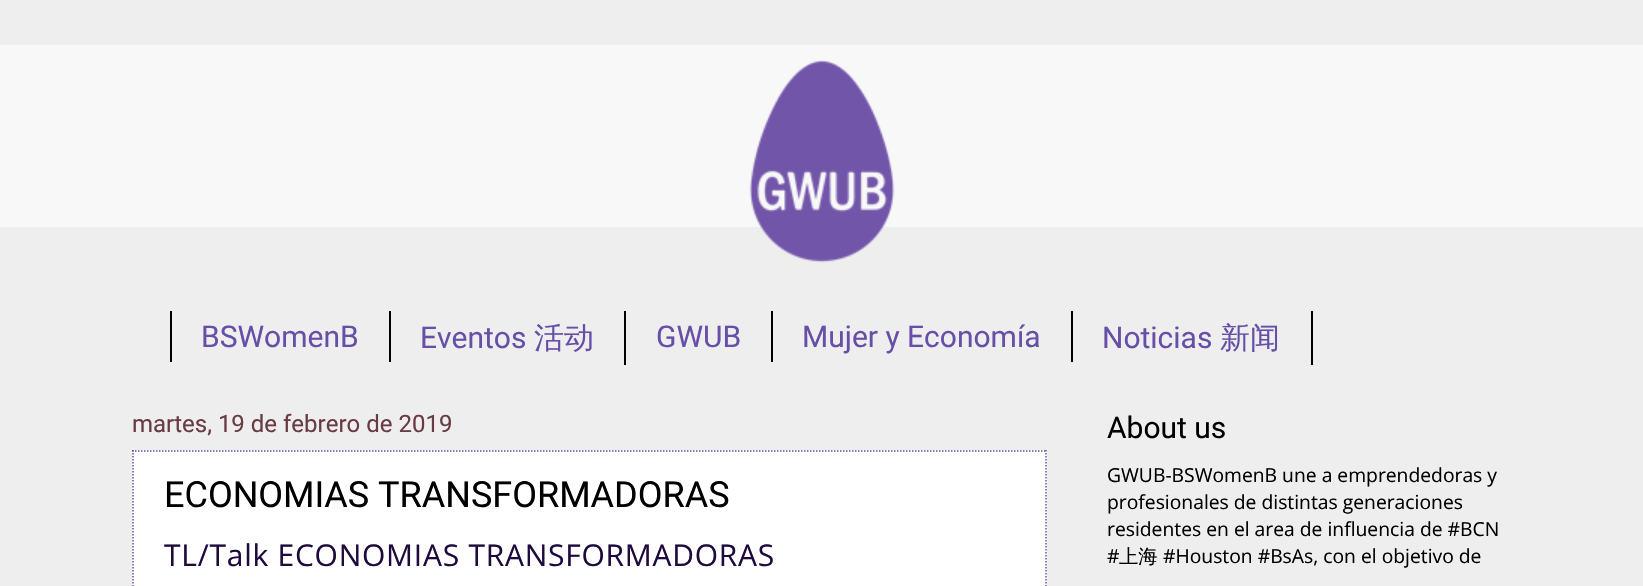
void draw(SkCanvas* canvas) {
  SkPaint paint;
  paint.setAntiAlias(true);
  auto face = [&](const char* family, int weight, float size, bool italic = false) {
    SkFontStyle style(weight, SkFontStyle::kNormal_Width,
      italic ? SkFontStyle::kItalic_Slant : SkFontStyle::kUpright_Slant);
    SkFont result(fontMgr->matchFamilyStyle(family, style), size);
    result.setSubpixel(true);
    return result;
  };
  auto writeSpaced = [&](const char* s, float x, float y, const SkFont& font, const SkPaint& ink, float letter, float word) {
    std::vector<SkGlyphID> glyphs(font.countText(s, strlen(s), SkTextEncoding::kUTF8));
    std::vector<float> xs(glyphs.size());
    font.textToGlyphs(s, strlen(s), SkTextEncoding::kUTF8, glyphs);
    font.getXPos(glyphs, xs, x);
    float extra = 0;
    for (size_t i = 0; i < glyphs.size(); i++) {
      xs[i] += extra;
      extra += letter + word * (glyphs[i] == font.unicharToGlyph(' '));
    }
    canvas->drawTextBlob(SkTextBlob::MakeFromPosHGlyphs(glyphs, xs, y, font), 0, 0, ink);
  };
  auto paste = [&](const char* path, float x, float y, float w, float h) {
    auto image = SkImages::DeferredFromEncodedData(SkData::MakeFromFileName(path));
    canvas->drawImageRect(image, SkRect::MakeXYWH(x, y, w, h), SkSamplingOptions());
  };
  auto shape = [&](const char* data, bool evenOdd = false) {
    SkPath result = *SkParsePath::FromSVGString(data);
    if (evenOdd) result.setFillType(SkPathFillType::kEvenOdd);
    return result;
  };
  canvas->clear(0xffeeeeee);
  paint.setColor(0xfff8f8f8);
  canvas->drawRect(SkRect::MakeXYWH(0, 45, 1643, 182), paint);
  paste("img/1.png", 749, 60, 146, 203);
  {
    const struct { float x, y, w, h; SkColor color; } items[] = {
      {389, 311, 2, 51, 0xff000000},
      {170, 311, 2, 51, 0xff000000},
      {624, 311, 2, 54, 0xff000000},
      {771, 311, 2, 51, 0xff000000},
      {1071, 311, 2, 51, 0xff000000},
      {1311, 311, 2, 54, 0xff000000},
      {132, 450, 915, 136, 0xffffffff},
    };
    for (auto [x, y, w, h, color] : items) {
      paint.setColor(color);
      canvas->drawRect(SkRect::MakeXYWH(x, y, w, h), paint);
    }
  }
  paint.setStroke(true);
  paint.setStrokeWidth(1.5f);
  paint.setColor(0xff674ea7);
  paint.setPathEffect(SkDashPathEffect::Make({{1.5f, 1.5f}}, 0));
  canvas->drawPath(shape("M132 451H1047"), paint);
  paint.setPathEffect(nullptr);
  paint.setPathEffect(SkDashPathEffect::Make({{1.5f, 1.5f}}, 0));
  canvas->drawPath(shape("M1046 450V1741.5"), paint);
  paint.setPathEffect(nullptr);
  paint.setPathEffect(SkDashPathEffect::Make({{1.5f, 1.5f}}, 0));
  canvas->drawPath(shape("M133 450V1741.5"), paint);
  paint.setPathEffect(nullptr);
  auto f0 = face("Roboto", 400, 30);
  paint.setStroke(false);
  canvas->drawString("BSWomenB", 201, 347, f0, paint);
  canvas->drawString("Eventos", 420, 348, f0, paint);
  auto f1 = face("WenQuanYi Zen Hei", 500, 30);
  canvas->drawString("活动", 534, 348, f1, paint);
  {
    const struct { const char* s; float x, y; } items[] = {
      {"GWUB", 656, 347},
      {"Mujer y Economía", 802, 347},
      {"Noticias", 1102, 348},
    };
    for (auto [s, x, y] : items) {
      canvas->drawString(s, x, y, f0, paint);
    }
  }
  canvas->drawString("新闻", 1220, 348, f1, paint);
  auto f2 = face("Roboto", 400, 24);
  paint.setColor(0xff693b45);
  canvas->drawString("martes, 19 de febrero de 2019", 132, 432, f2, paint);
  auto f3 = face("Roboto", 400, 36);
  paint.setColor(0xff000000);
  canvas->drawString("ECONOMIAS TRANSFORMADORAS", 164, 507, f3, paint);
  canvas->save();
  canvas->clipRect(SkRect::MakeXYWH(164, 539, 852, 34));
  auto f4 = face("Open Sans", 400, 30);
  paint.setColor(0xff1e0a3c);
  writeSpaced("TL/Talk ECONOMIAS TRANSFORMADORAS", 164, 566, f4, paint, 0.75f, 0);
  canvas->restore();
  paint.setColor(0xff000000);
  canvas->drawString("About us", 1107, 438, f0, paint);
  auto f5 = face("Open Sans", 400, 19.3f);
  {
    const struct { const char* s; float x, y; } items[] = {
      {"GWUB-BSWomenB une a emprendedoras y", 1107, 482},
      {"profesionales de distintas generaciones", 1107, 509},
      {"residentes en el area de influencia de #BCN", 1107, 536},
      {"#", 1107, 563},
    };
    for (auto [s, x, y] : items) {
      canvas->drawString(s, x, y, f5, paint);
    }
  }
  auto f6 = face("WenQuanYi Zen Hei", 500, 19.3f);
  canvas->drawString("上海", 1119, 563, f6, paint);
  canvas->drawString("#Houston #BsAs, con el objetivo de", 1163, 563, f5, paint);
}
